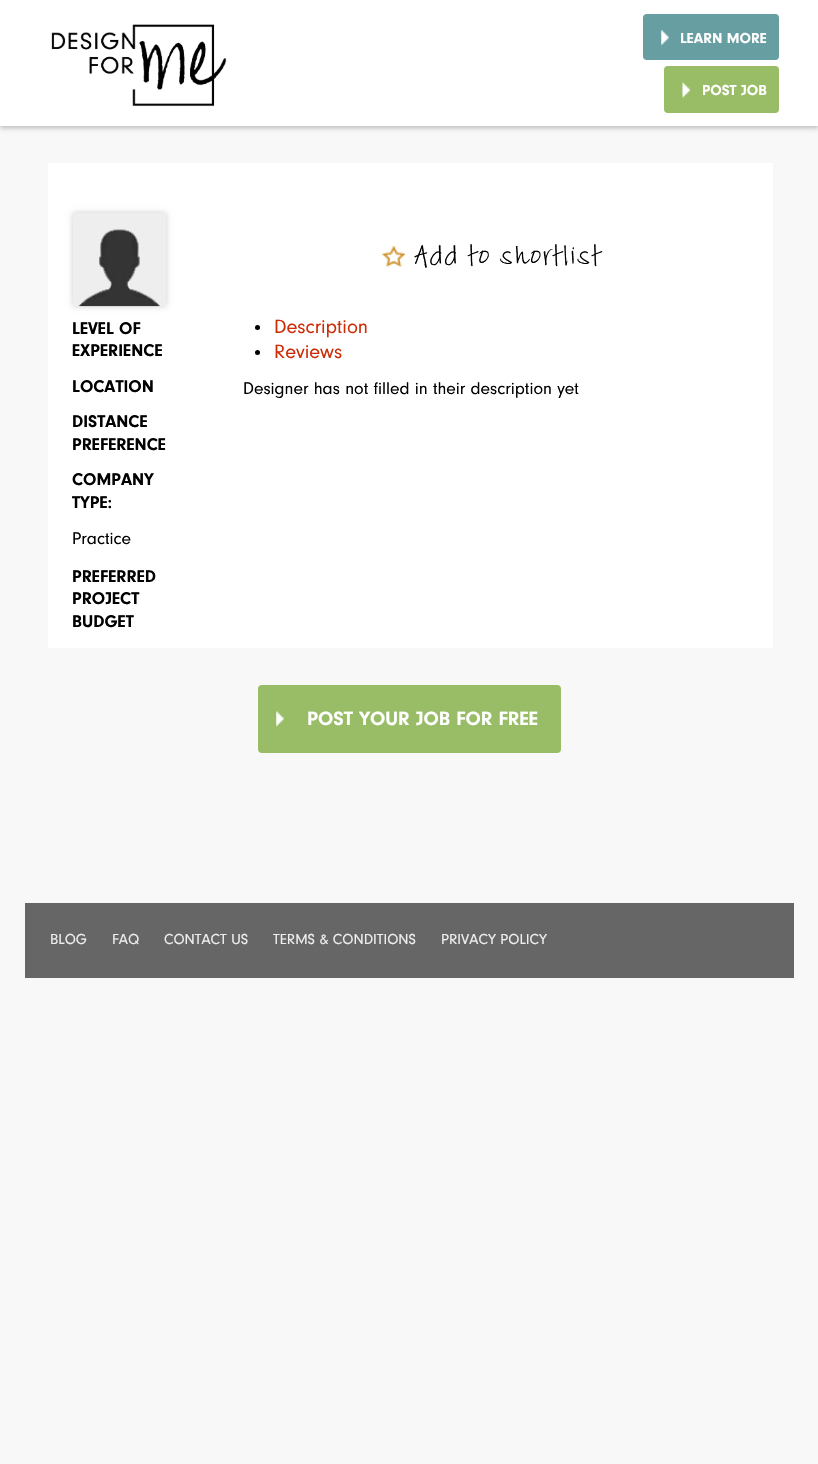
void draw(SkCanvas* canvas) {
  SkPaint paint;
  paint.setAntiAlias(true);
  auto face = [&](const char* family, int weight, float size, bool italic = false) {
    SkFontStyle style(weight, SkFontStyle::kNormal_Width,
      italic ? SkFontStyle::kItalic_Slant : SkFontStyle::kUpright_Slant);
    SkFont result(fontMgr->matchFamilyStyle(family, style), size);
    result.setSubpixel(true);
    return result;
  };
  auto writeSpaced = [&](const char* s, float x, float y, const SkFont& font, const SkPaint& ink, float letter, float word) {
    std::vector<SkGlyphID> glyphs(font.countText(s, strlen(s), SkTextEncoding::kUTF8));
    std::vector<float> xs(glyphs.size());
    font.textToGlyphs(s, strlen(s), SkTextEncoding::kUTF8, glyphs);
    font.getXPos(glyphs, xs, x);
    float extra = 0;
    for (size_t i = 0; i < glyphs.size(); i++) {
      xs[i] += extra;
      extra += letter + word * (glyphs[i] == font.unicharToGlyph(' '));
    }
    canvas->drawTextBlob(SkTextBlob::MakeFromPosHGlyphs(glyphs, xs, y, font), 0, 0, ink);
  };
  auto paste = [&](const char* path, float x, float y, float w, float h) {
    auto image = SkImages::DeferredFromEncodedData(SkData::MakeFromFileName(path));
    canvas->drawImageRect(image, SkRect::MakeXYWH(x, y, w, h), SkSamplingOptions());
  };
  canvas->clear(0xfff8f8f8);
  paint.setColor(0x40000000);
  paint.setMaskFilter(SkMaskFilter::MakeBlur(kNormal_SkBlurStyle, 2.5f));
  canvas->drawRect(SkRect::MakeXYWH(0, 3, 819, 125), paint);
  paint.setMaskFilter(nullptr);
  paint.setColor(0xffffffff);
  canvas->drawRect(SkRect::MakeXYWH(0, 0, 818, 126), paint);
  paste("img/1.png", 51, 24, 176, 83);
  paint.setColor(0xff669ea2);
  canvas->drawRoundRect(SkRect::MakeXYWH(643, 14, 136, 46), 4, 4, paint);
  paste("img/2.png", 661, 30, 8, 15);
  paint.setColor(0xff99bd66);
  canvas->drawRoundRect(SkRect::MakeXYWH(664, 66, 115, 47), 4, 4, paint);
  paste("img/3.png", 682, 82, 8, 16);
  paint.setColor(0xffffffff);
  canvas->drawRect(SkRect::MakeXYWH(48, 163, 725, 485), paint);
  paint.setColor(0x33000000);
  paint.setMaskFilter(SkMaskFilter::MakeBlur(kNormal_SkBlurStyle, 3));
  canvas->drawRect(SkRect::MakeXYWH(73, 213, 93, 93), paint);
  paint.setMaskFilter(nullptr);
  paint.setColor(0xffeeeeee);
  canvas->drawRect(SkRect::MakeXYWH(73, 213, 93, 93), paint);
  paste("img/4.png", 78, 229, 82, 78);
  paste("img/5.png", 382, 246, 23, 21);
  paint.setColor(0xff000000);
  canvas->drawCircle(257.5f, 327.5f, 2.5f, paint);
  canvas->drawCircle(257.5f, 352.5f, 2.5f, paint);
  paint.setColor(0xff99bd66);
  canvas->drawRoundRect(SkRect::MakeXYWH(258, 685, 303, 68), 4, 4, paint);
  paste("img/6.png", 276, 711, 8, 16);
  paint.setColor(0xff666666);
  canvas->drawRect(SkRect::MakeXYWH(25, 903, 769, 75), paint);
  auto f0 = face("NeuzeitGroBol", 400, 15);
  paint.setColor(0xffffffff);
  canvas->drawString("LEARN MORE", 680, 43, f0, paint);
  canvas->drawString("POST JOB", 702, 95, f0, paint);
  auto f1 = face("NeuzeitGroBol", 400, 17.5f);
  paint.setColor(0xff000000);
  {
    const struct { const char* s; float x, y; } items[] = {
      {"LEVEL OF", 72, 334},
      {"EXPERIENCE", 72, 356},
      {"LOCATION", 72, 392},
      {"DISTANCE", 72, 427},
      {"PREFERENCE", 72, 450},
      {"COMPANY", 72, 485},
      {"TYPE:", 72, 508},
    };
    for (auto [s, x, y] : items) {
      canvas->drawString(s, x, y, f1, paint);
    }
  }
  auto f2 = face("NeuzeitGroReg", 400, 17.5f);
  canvas->drawString("Practice", 72, 544, f2, paint);
  {
    const struct { const char* s; float x, y; } items[] = {
      {"PREFERRED", 72, 582},
      {"PROJECT", 72, 604},
      {"BUDGET", 72, 627},
    };
    for (auto [s, x, y] : items) {
      canvas->drawString(s, x, y, f1, paint);
    }
  }
  auto f3 = face("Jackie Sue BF", 400, 27.5f);
  writeSpaced("Add to shortlist", 415, 264, f3, paint, 2.25f, 0);
  auto f4 = face("NeuzeitGroReg", 400, 20);
  paint.setColor(0xffcc2d06);
  canvas->drawString("Description", 274, 333, f4, paint);
  canvas->drawString("Reviews", 274, 358, f4, paint);
  paint.setColor(0xff000000);
  canvas->drawString("Designer has not filled in their description yet", 243, 394, f2, paint);
  auto f5 = face("NeuzeitGroBol", 400, 20);
  paint.setColor(0xffffffff);
  canvas->drawString("POST YOUR JOB FOR FREE", 307, 725, f5, paint);
  auto f6 = face("NeuzeitGroReg", 400, 15);
  paint.setColor(0xffeeeeee);
  {
    const struct { const char* s; float x, y; } items[] = {
      {"BLOG", 50, 944},
      {"FAQ", 112, 944},
      {"CONTACT US", 164, 944},
      {"TERMS & CONDITIONS", 273, 944},
      {"PRIVACY POLICY", 441, 944},
    };
    for (auto [s, x, y] : items) {
      canvas->drawString(s, x, y, f6, paint);
    }
  }
}
